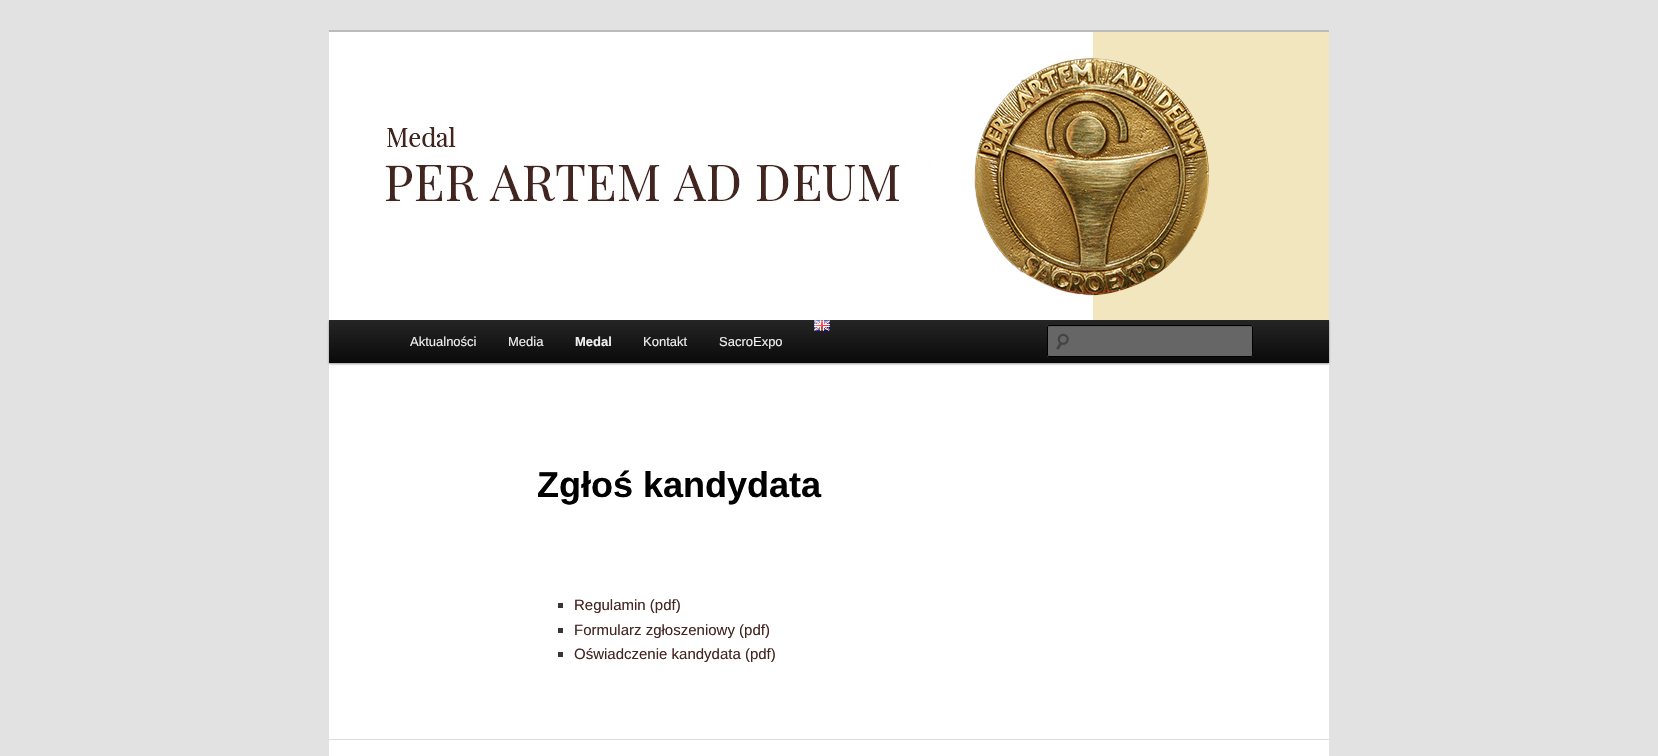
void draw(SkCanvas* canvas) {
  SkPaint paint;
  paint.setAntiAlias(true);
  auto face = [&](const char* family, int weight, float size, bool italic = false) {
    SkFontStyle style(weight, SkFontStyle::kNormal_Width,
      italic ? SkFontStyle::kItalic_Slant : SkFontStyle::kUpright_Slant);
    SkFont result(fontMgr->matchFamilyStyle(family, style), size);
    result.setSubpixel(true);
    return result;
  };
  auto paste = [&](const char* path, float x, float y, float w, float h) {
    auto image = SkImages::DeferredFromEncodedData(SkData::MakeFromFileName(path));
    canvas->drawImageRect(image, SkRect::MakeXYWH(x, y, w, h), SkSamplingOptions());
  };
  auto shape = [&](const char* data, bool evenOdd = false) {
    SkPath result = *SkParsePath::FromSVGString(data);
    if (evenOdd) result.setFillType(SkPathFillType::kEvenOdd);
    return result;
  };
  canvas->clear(0xffe2e2e2);
  paint.setColor(0xffffffff);
  canvas->drawRect(SkRect::MakeXYWH(329, 363, 1000, 393), paint);
  paint.setColor(0xffbbbbbb);
  canvas->drawRect(SkRect::MakeXYWH(329, 30, 1000, 2), paint);
  paint.setColor(0x66000000);
  paint.setMaskFilter(SkMaskFilter::MakeBlur(kNormal_SkBlurStyle, 1));
  canvas->drawRect(SkRect::MakeXYWH(329, 321, 1000, 43), paint);
  paint.setMaskFilter(nullptr);
  paste("img/1.png", 329, 32, 1000, 288);
  {
    const SkColor colors[] = {0xff252525, 0xff0a0a0a};
    const float stops[] = {0, 1};
    const SkPoint ends[] = {{829, 320}, {829, 363}};
    paint.setShader(SkGradientShader::MakeLinear(ends, colors, stops, 2, SkTileMode::kClamp));
    paint.setAlpha(255);
  }
  canvas->drawRect(SkRect::MakeXYWH(329, 320, 1000, 43), paint);
  paste("img/2.png", 814, 320, 16, 11);
  paint.setShader(nullptr);
  paint.setColor(0xff666666);
  canvas->drawRoundRect(SkRect::MakeXYWH(1047, 325, 206, 32), 2, 2, paint);
  paste("img/3.png", 1056, 333, 13, 17);
  paint.setColor(0xff5c5c5c);
  canvas->drawPath(shape("M1049 327H1252V328V326H1251H1049C1048 326 1048 327 1048 328C1048 327 1048 327 1049 327Z"), paint);
  paint.setStroke(true);
  paint.setStrokeWidth(1);
  paint.setColor(0xff000000);
  canvas->drawRoundRect(SkRect::MakeXYWH(1047.5f, 325.5f, 205, 31), 1.5f, 1.5f, paint);
  paint.setStroke(false);
  {
    const struct { float x, y, w, h; SkColor color; } items[] = {
      {558, 603, 5, 5, 0xff373737},
      {558, 628, 5, 5, 0xff373737},
      {558, 652, 5, 5, 0xff373737},
      {329, 739, 1000, 1, 0xffdddddd},
    };
    for (auto [x, y, w, h, color] : items) {
      paint.setColor(color);
      canvas->drawRect(SkRect::MakeXYWH(x, y, w, h), paint);
    }
  }
  auto f0 = face("Liberation Sans", 400, 13);
  paint.setColor(0xffeeeeee);
  canvas->drawString("Aktualności", 410, 346, f0, paint);
  canvas->drawString("Media", 508, 346, f0, paint);
  auto f1 = face("Liberation Sans", 700, 13);
  canvas->drawString("Medal", 575, 346, f1, paint);
  canvas->drawString("Kontakt", 643, 346, f0, paint);
  canvas->drawString("SacroExpo", 719, 346, f0, paint);
  auto f2 = face("Liberation Sans", 700, 36);
  paint.setColor(0xff000000);
  canvas->drawString("Zgłoś kandydata", 537, 497, f2, paint);
  auto f3 = face("Liberation Sans", 400, 15);
  paint.setColor(0xff442520);
  {
    const struct { const char* s; float x, y; } items[] = {
      {"Regulamin (pdf)", 574, 610},
      {"Formularz zgłoszeniowy (pdf)", 574, 635},
      {"Oświadczenie kandydata (pdf)", 574, 659},
    };
    for (auto [s, x, y] : items) {
      canvas->drawString(s, x, y, f3, paint);
    }
  }
}
